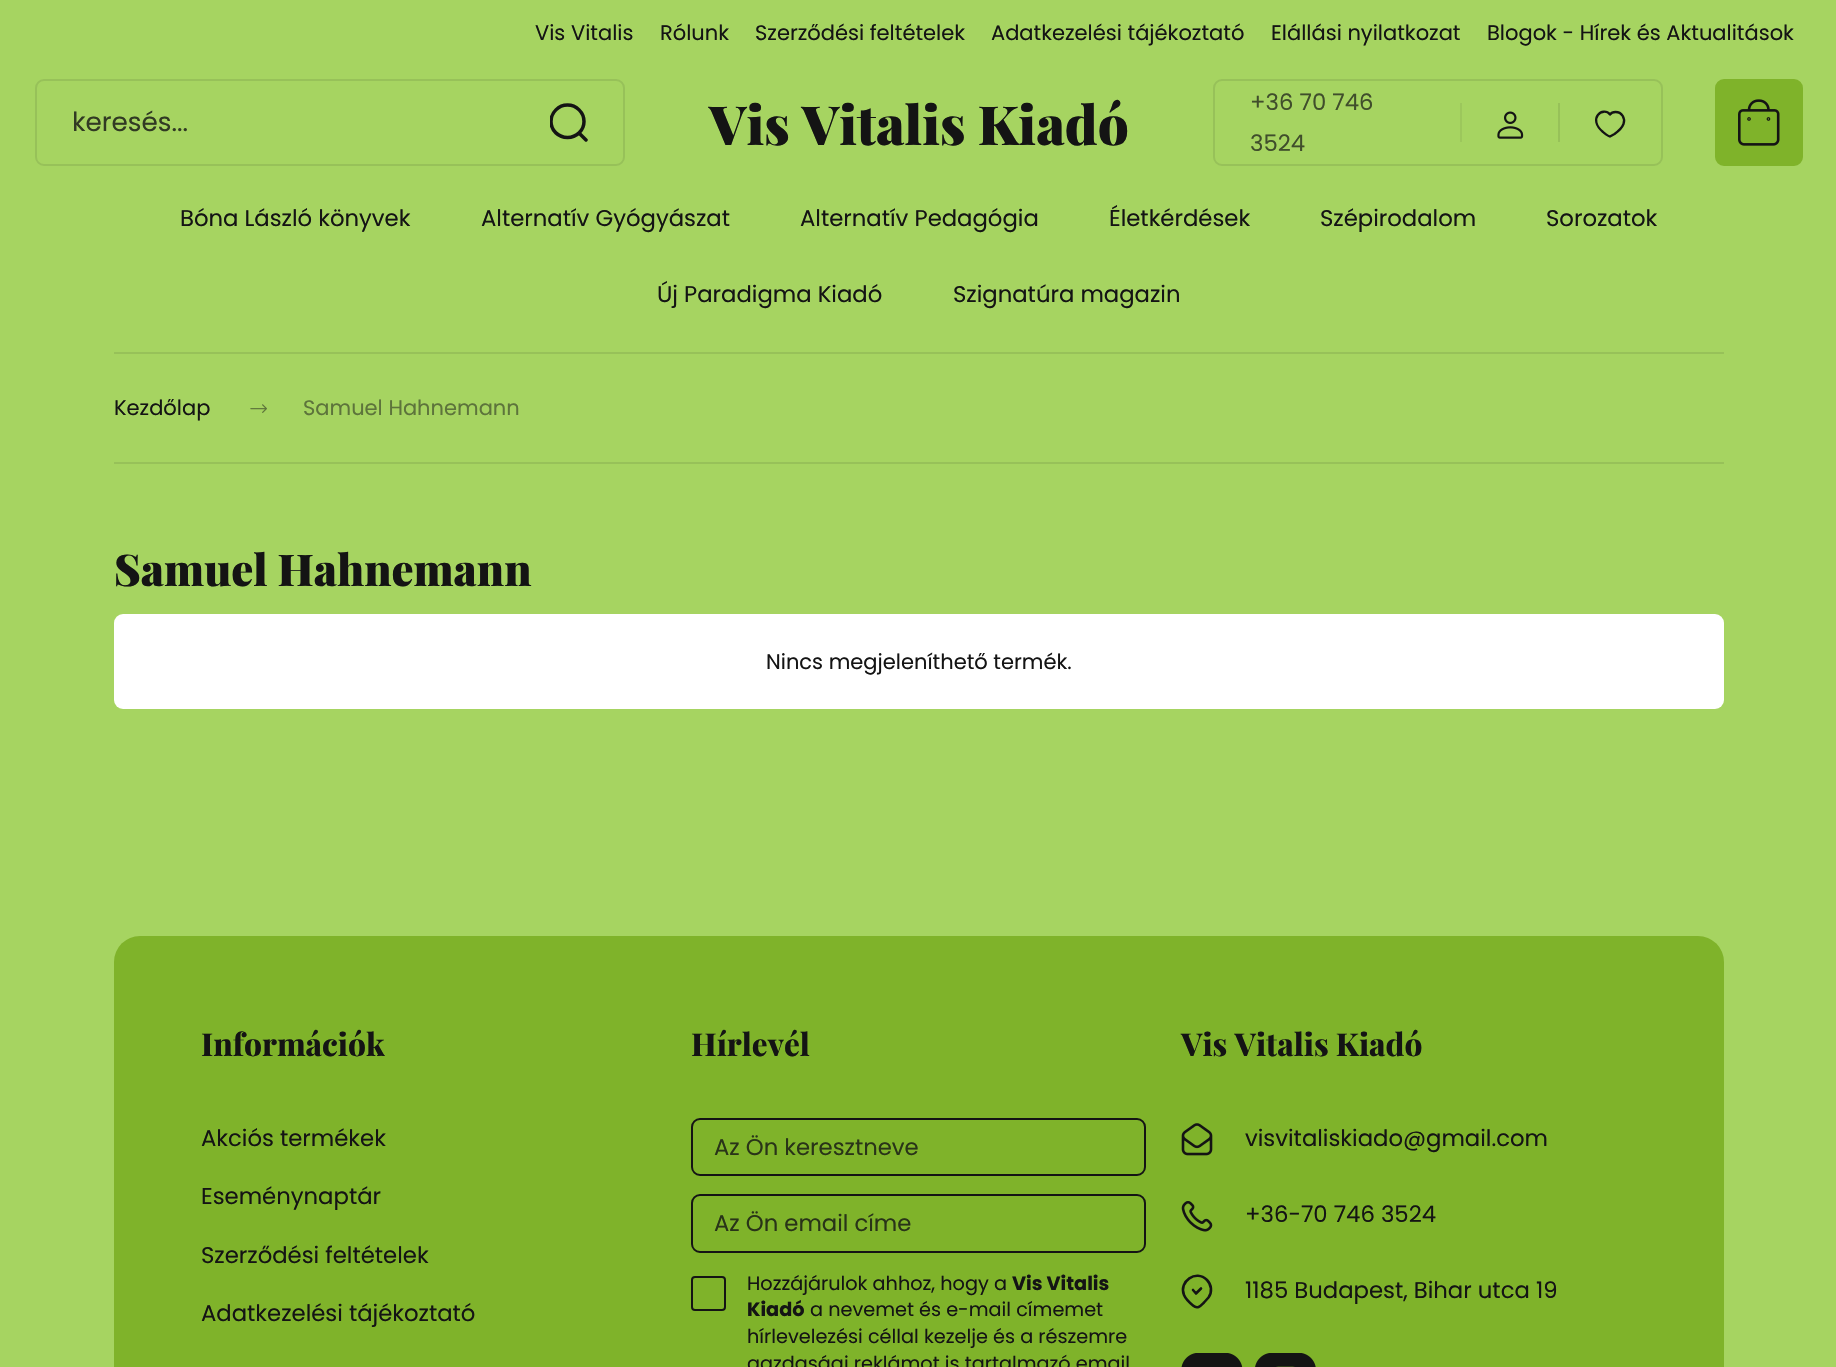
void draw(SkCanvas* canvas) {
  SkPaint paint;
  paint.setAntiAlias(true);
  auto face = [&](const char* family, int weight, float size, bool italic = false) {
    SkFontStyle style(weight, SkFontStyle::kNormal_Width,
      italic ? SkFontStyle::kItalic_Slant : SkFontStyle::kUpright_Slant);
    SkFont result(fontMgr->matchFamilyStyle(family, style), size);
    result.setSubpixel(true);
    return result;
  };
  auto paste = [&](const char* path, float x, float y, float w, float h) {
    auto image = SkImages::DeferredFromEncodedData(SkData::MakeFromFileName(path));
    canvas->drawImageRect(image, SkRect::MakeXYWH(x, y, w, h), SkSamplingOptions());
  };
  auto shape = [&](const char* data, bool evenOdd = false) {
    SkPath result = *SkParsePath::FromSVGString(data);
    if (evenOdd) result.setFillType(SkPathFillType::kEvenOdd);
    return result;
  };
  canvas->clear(0xffa6d461);
  paint.setStroke(true);
  paint.setStrokeWidth(2);
  paint.setColor(0xff97c159);
  canvas->drawRoundRect(SkRect::MakeXYWH(36, 80, 588, 85), 8, 8, paint);
  canvas->save();
  canvas->clipRect(SkRect::MakeXYWH(550, 103, 38, 39));
  paint.setStrokeWidth(3.5f);
  paint.setStrokeCap(SkPaint::kRound_Cap);
  paint.setStrokeJoin(SkPaint::kRound_Join);
  paint.setColor(0xff141414);
  canvas->drawPath(shape("M586 140L579 133M567.5 137.5C558.5 137.5 551 130.5 551 121.5C551 112.5 558.5 105 567.5 105C576.5 105 584 112.5 584 121.5C584 130.5 576.5 137.5 567.5 137.5Z"), paint);
  canvas->restore();
  paint.setStrokeWidth(2);
  paint.setStrokeCap(SkPaint::kButt_Cap);
  paint.setStrokeJoin(SkPaint::kMiter_Join);
  paint.setColor(0xff97c159);
  canvas->drawRoundRect(SkRect::MakeXYWH(1214, 80, 448, 85), 8, 8, paint);
  paint.setStroke(false);
  paint.setColor(0xff9cc75c);
  canvas->drawRect(SkRect::MakeXYWH(1460, 103, 2, 39), paint);
  paste("img/1.png", 1497, 111, 27, 28);
  paint.setColor(0xff97c159);
  canvas->drawRect(SkRect::MakeXYWH(1558, 103, 2, 39), paint);
  paint.setStroke(true);
  paint.setStrokeWidth(2.3f);
  paint.setStrokeCap(SkPaint::kRound_Cap);
  paint.setStrokeJoin(SkPaint::kRound_Join);
  paint.setColor(0xff141414);
  canvas->drawPath(shape("M1615.5 112C1622 112 1625.5 118.5 1623.5 124C1622 128 1618 131.5 1614.5 134L1610 136.5C1608.5 136.5 1604 133 1603 132C1587 118.5 1603 106 1610 114.5C1611 113 1613 112 1615.5 112Z"), paint);
  paint.setStroke(false);
  paint.setColor(0xff7fb32a);
  canvas->drawRoundRect(SkRect::MakeXYWH(1716, 80, 86, 85), 8, 8, paint);
  paint.setStroke(true);
  paint.setStrokeWidth(2);
  paint.setStrokeCap(SkPaint::kButt_Cap);
  paint.setStrokeJoin(SkPaint::kMiter_Join);
  canvas->drawRoundRect(SkRect::MakeXYWH(1716, 80, 86, 85), 8, 8, paint);
  paste("img/2.png", 1738, 99, 42, 47);
  paint.setStroke(false);
  paint.setColor(0xff97c159);
  canvas->drawRect(SkRect::MakeXYWH(114, 352, 1610, 2), paint);
  canvas->drawRect(SkRect::MakeXYWH(114, 462, 1610, 2), paint);
  paste("img/3.png", 250, 404, 17, 9);
  paint.setColor(0xffffffff);
  canvas->drawRoundRect(SkRect::MakeXYWH(114, 614, 1610, 95), 9, 9, paint);
  paint.setColor(0xff7fb32a);
  canvas->drawRoundRect(SkRect::MakeXYWH(114, 936, 1610, 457), 26, 26, paint);
  paint.setStroke(true);
  paint.setColor(0xff141414);
  canvas->drawRoundRect(SkRect::MakeXYWH(692, 1119, 453, 56), 8, 8, paint);
  canvas->drawRoundRect(SkRect::MakeXYWH(692, 1195, 453, 57), 8, 8, paint);
  canvas->drawRoundRect(SkRect::MakeXYWH(692, 1277, 33, 33), 3, 3, paint);
  paste("img/4.png", 1181, 1123, 32, 33);
  paste("img/5.png", 1181, 1201, 32, 31);
  paint.setStrokeWidth(2.6f);
  paint.setStrokeCap(SkPaint::kRound_Cap);
  paint.setStrokeJoin(SkPaint::kRound_Join);
  canvas->drawPath(shape("M1193 1290L1196 1293.5L1201 1288.5M1207 1280C1211.5 1284.5 1212.5 1292 1208.5 1297.5L1204 1302.5C1200.5 1306 1197.5 1309.5 1193 1305.5C1190 1303 1185.5 1298.5 1184 1295C1178.5 1281.5 1196 1269 1207 1280Z"), paint);
  paste("img/6.png", 1181, 1353, 62, 14);
  paste("img/7.png", 1255, 1353, 61, 14);
  auto f0 = face("Poppins", 400, 21);
  paint.setStroke(false);
  {
    const struct { const char* s; float x, y; } items[] = {
      {"Vis Vitalis", 535, 40},
      {"Rólunk", 660, 40},
      {"Szerződési feltételek", 755, 40},
      {"Adatkezelési tájékoztató", 991, 40},
      {"Elállási nyilatkozat", 1271, 40},
      {"Blogok - Hírek és Aktualitások", 1487, 40},
    };
    for (auto [s, x, y] : items) {
      canvas->drawString(s, x, y, f0, paint);
    }
  }
  auto f1 = face("Poppins", 400, 26.25f);
  paint.setColor(0xff313a23);
  canvas->drawString("keresés...", 72, 131, f1, paint);
  auto f2 = face("Playfair Display", 900, 54);
  paint.setColor(0xff141414);
  canvas->drawString("Vis Vitalis Kiadó", 709, 145, f2, paint);
  auto f3 = face("Poppins", 400, 22.75f);
  paint.setColor(0xff404e2b);
  canvas->drawString("+36 70 746", 1250, 110, f3, paint);
  canvas->drawString("3524", 1250, 151, f3, paint);
  paint.setColor(0xff141414);
  {
    const struct { const char* s; float x, y; } items[] = {
      {"Bóna László könyvek", 180, 226},
      {"Alternatív Gyógyászat", 481, 226},
      {"Alternatív Pedagógia", 800, 226},
      {"Életkérdések", 1109, 226},
      {"Szépirodalom", 1320, 226},
      {"Sorozatok", 1546, 226},
      {"Új Paradigma Kiadó", 657, 302},
      {"Szignatúra magazin", 953, 302},
    };
    for (auto [s, x, y] : items) {
      canvas->drawString(s, x, y, f3, paint);
    }
  }
  canvas->drawString("Kezdőlap", 114, 415, f0, paint);
  paint.setColor(0xff5d743b);
  canvas->drawString("Samuel Hahnemann", 303, 415, f0, paint);
  auto f4 = face("Playfair Display", 900, 43.75f);
  paint.setColor(0xff141414);
  canvas->drawString("Samuel Hahnemann", 114, 586, f4, paint);
  canvas->drawString("Nincs megjeleníthető termék.", 766, 669, f0, paint);
  auto f5 = face("Playfair Display", 800, 31.5f);
  canvas->drawString("Információk", 201, 1056, f5, paint);
  {
    const struct { const char* s; float x, y; } items[] = {
      {"Akciós termékek", 201, 1146},
      {"Eseménynaptár", 201, 1204},
      {"Szerződési feltételek", 201, 1263},
      {"Adatkezelési tájékoztató", 201, 1321},
    };
    for (auto [s, x, y] : items) {
      canvas->drawString(s, x, y, f3, paint);
    }
  }
  canvas->drawString("Hírlevél", 691, 1056, f5, paint);
  paint.setColor(0xff293418);
  canvas->drawString("Az Ön keresztneve", 714, 1155, f3, paint);
  canvas->drawString("Az Ön email címe", 714, 1231, f3, paint);
  auto f6 = face("Poppins", 400, 19.25f);
  paint.setColor(0xff141414);
  canvas->drawString("Hozzájárulok ahhoz, hogy a", 747, 1290, f6, paint);
  auto f7 = face("Poppins", 700, 19.25f);
  canvas->drawString("Vis Vitalis", 1012, 1290, f7, paint);
  canvas->drawString("Kiadó", 747, 1316, f7, paint);
  {
    const struct { const char* s; float x, y; } items[] = {
      {"a nevemet és e-mail címemet", 810, 1316},
      {"hírlevelezési céllal kezelje és a részemre", 747, 1343},
      {"gazdasági reklámot is tartalmazó email", 747, 1370},
    };
    for (auto [s, x, y] : items) {
      canvas->drawString(s, x, y, f6, paint);
    }
  }
  canvas->drawString("Vis Vitalis Kiadó", 1181, 1056, f5, paint);
  {
    const struct { const char* s; float x, y; } items[] = {
      {"visvitaliskiado@gmail.com", 1245, 1146},
      {"+36-70 746 3524", 1245, 1222},
      {"1185 Budapest, Bihar utca 19", 1245, 1298},
    };
    for (auto [s, x, y] : items) {
      canvas->drawString(s, x, y, f3, paint);
    }
  }
}
